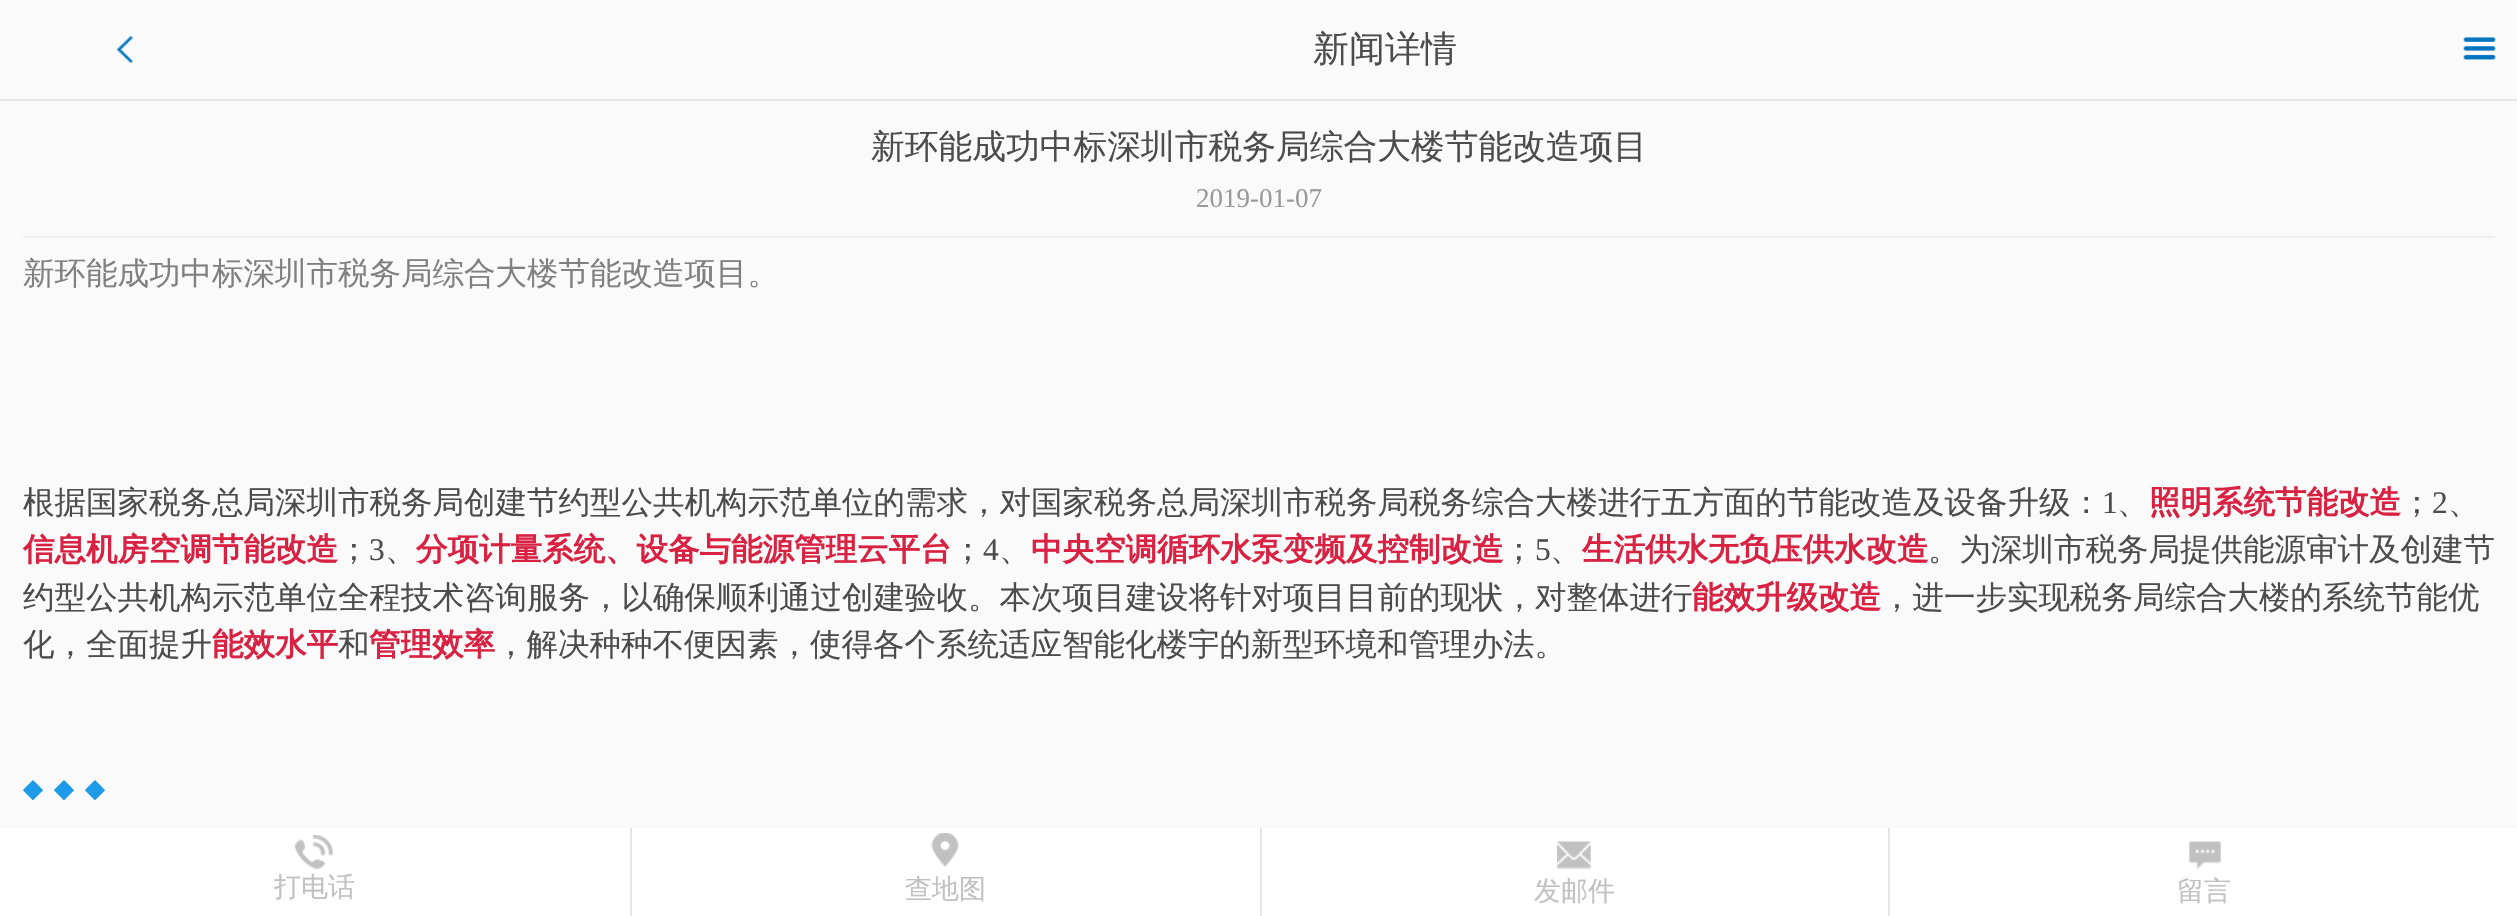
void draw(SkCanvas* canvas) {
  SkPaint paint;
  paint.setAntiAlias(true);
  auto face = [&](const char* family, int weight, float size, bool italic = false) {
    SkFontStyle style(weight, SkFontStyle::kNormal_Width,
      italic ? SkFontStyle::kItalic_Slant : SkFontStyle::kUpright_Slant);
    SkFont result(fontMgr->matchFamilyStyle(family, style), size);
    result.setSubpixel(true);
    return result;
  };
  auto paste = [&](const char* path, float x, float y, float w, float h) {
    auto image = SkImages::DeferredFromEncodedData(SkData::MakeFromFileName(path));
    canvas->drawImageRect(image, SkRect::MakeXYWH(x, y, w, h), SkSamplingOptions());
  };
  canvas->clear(0xfffafafa);
  paint.setColor(0xffe6e6e6);
  canvas->drawRect(SkRect::MakeXYWH(0, 99, 2517, 2), paint);
  paint.setColor(0xffededed);
  canvas->drawRect(SkRect::MakeXYWH(23, 236, 2472, 2), paint);
  paste("img/1.png", 117, 36, 16, 27);
  paste("img/2.png", 2463, 37, 33, 23);
  paint.setColor(0xffffffff);
  canvas->drawRect(SkRect::MakeXYWH(0, 828, 2517, 88), paint);
  paste("img/3.png", 294, 835, 39, 34);
  paint.setColor(0xffe6e6e6);
  canvas->drawRect(SkRect::MakeXYWH(630, 828, 2, 88), paint);
  paste("img/4.png", 931, 833, 28, 34);
  canvas->drawRect(SkRect::MakeXYWH(1260, 828, 2, 88), paint);
  paste("img/5.png", 1557, 840, 34, 29);
  canvas->drawRect(SkRect::MakeXYWH(1888, 828, 2, 88), paint);
  paste("img/6.png", 2189, 841, 32, 28);
  auto f0 = face("WenQuanYi Zen Hei", 500, 36);
  paint.setColor(0xff4c4c4c);
  canvas->drawString("新闻详情", 1313, 61, f0, paint);
  auto f1 = face("WenQuanYi Zen Hei", 500, 33.75f);
  canvas->drawString("新环能成功中标深圳市税务局综合大楼节能改造项目", 871, 158, f1, paint);
  auto f2 = face("Liberation Serif", 400, 27);
  paint.setColor(0xff999999);
  canvas->drawString("2019-01-07", 1196, 207, f2, paint);
  auto f3 = face("WenQuanYi Zen Hei", 500, 31.5f);
  paint.setColor(0xff808080);
  canvas->drawString("新环能成功中标深圳市税务局综合大楼节能改造项目。", 23, 284, f3, paint);
  paint.setColor(0xff4c4c4c);
  canvas->drawString("根据国家税务总局深圳市税务局创建节约型公共机构示范单位的需求，对国家税务总局深圳市税务局税务综合大楼进行五方面的节能改造及设备升级：", 23, 513, f3, paint);
  auto f4 = face("Liberation Serif", 400, 31.5f);
  canvas->drawString("1", 2102, 513, f4, paint);
  canvas->drawString("、", 2117, 513, f3, paint);
  auto f5 = face("WenQuanYi Zen Hei", 700, 31.5f);
  paint.setColor(0xffd92142);
  canvas->drawString("照明系统节能改造", 2149, 513, f5, paint);
  paint.setColor(0xff4c4c4c);
  canvas->drawString("；", 2401, 513, f3, paint);
  canvas->drawString("2", 2432, 513, f4, paint);
  canvas->drawString("、", 2448, 513, f3, paint);
  paint.setColor(0xffd92142);
  canvas->drawString("信息机房空调节能改造", 23, 560, f5, paint);
  paint.setColor(0xff4c4c4c);
  canvas->drawString("；", 338, 560, f3, paint);
  canvas->drawString("3", 369, 560, f4, paint);
  canvas->drawString("、", 385, 560, f3, paint);
  paint.setColor(0xffd92142);
  canvas->drawString("分项计量系统、设备与能源管理云平台", 416, 560, f5, paint);
  paint.setColor(0xff4c4c4c);
  canvas->drawString("；", 952, 560, f3, paint);
  canvas->drawString("4", 983, 560, f4, paint);
  canvas->drawString("、", 999, 560, f3, paint);
  paint.setColor(0xffd92142);
  canvas->drawString("中央空调循环水泵变频及控制改造", 1031, 560, f5, paint);
  paint.setColor(0xff4c4c4c);
  canvas->drawString("；", 1503, 560, f3, paint);
  canvas->drawString("5", 1535, 560, f4, paint);
  canvas->drawString("、", 1550, 560, f3, paint);
  paint.setColor(0xffd92142);
  canvas->drawString("生活供水无负压供水改造", 1582, 560, f5, paint);
  paint.setColor(0xff4c4c4c);
  canvas->drawString("。为深圳市税务局提供能源审计及创建节", 1928, 560, f3, paint);
  canvas->drawString("约型公共机构示范单位全程技术咨询服务，以确保顺利通过创建验收。本次项目建设将针对项目目前的现状，对整体进行", 23, 608, f3, paint);
  paint.setColor(0xffd92142);
  canvas->drawString("能效升级改造", 1692, 608, f5, paint);
  paint.setColor(0xff4c4c4c);
  canvas->drawString("，进一步实现税务局综合大楼的系统节能优", 1881, 608, f3, paint);
  canvas->drawString("化，全面提升", 23, 655, f3, paint);
  paint.setColor(0xffd92142);
  canvas->drawString("能效水平", 212, 655, f5, paint);
  paint.setColor(0xff4c4c4c);
  canvas->drawString("和", 338, 655, f3, paint);
  paint.setColor(0xffd92142);
  canvas->drawString("管理效率", 369, 655, f5, paint);
  paint.setColor(0xff4c4c4c);
  canvas->drawString("，解决种种不便因素，使得各个系统适应智能化楼宇的新型环境和管理办法。", 495, 655, f3, paint);
  auto f6 = face("DejaVu Sans", 700, 25);
  paint.setColor(0xff1e9be8);
  {
    const struct { const char* s; float x, y; } items[] = {
      {"◆", 23, 797},
      {"◆", 54, 797},
      {"◆", 85, 797},
    };
    for (auto [s, x, y] : items) {
      canvas->drawString(s, x, y, f6, paint);
    }
  }
  auto f7 = face("WenQuanYi Zen Hei", 500, 27);
  paint.setColor(0xffc1c1c1);
  {
    const struct { const char* s; float x, y; } items[] = {
      {"打电话", 274, 896},
      {"查地图", 905, 898},
      {"发邮件", 1534, 900},
      {"留言", 2177, 900},
    };
    for (auto [s, x, y] : items) {
      canvas->drawString(s, x, y, f7, paint);
    }
  }
}
